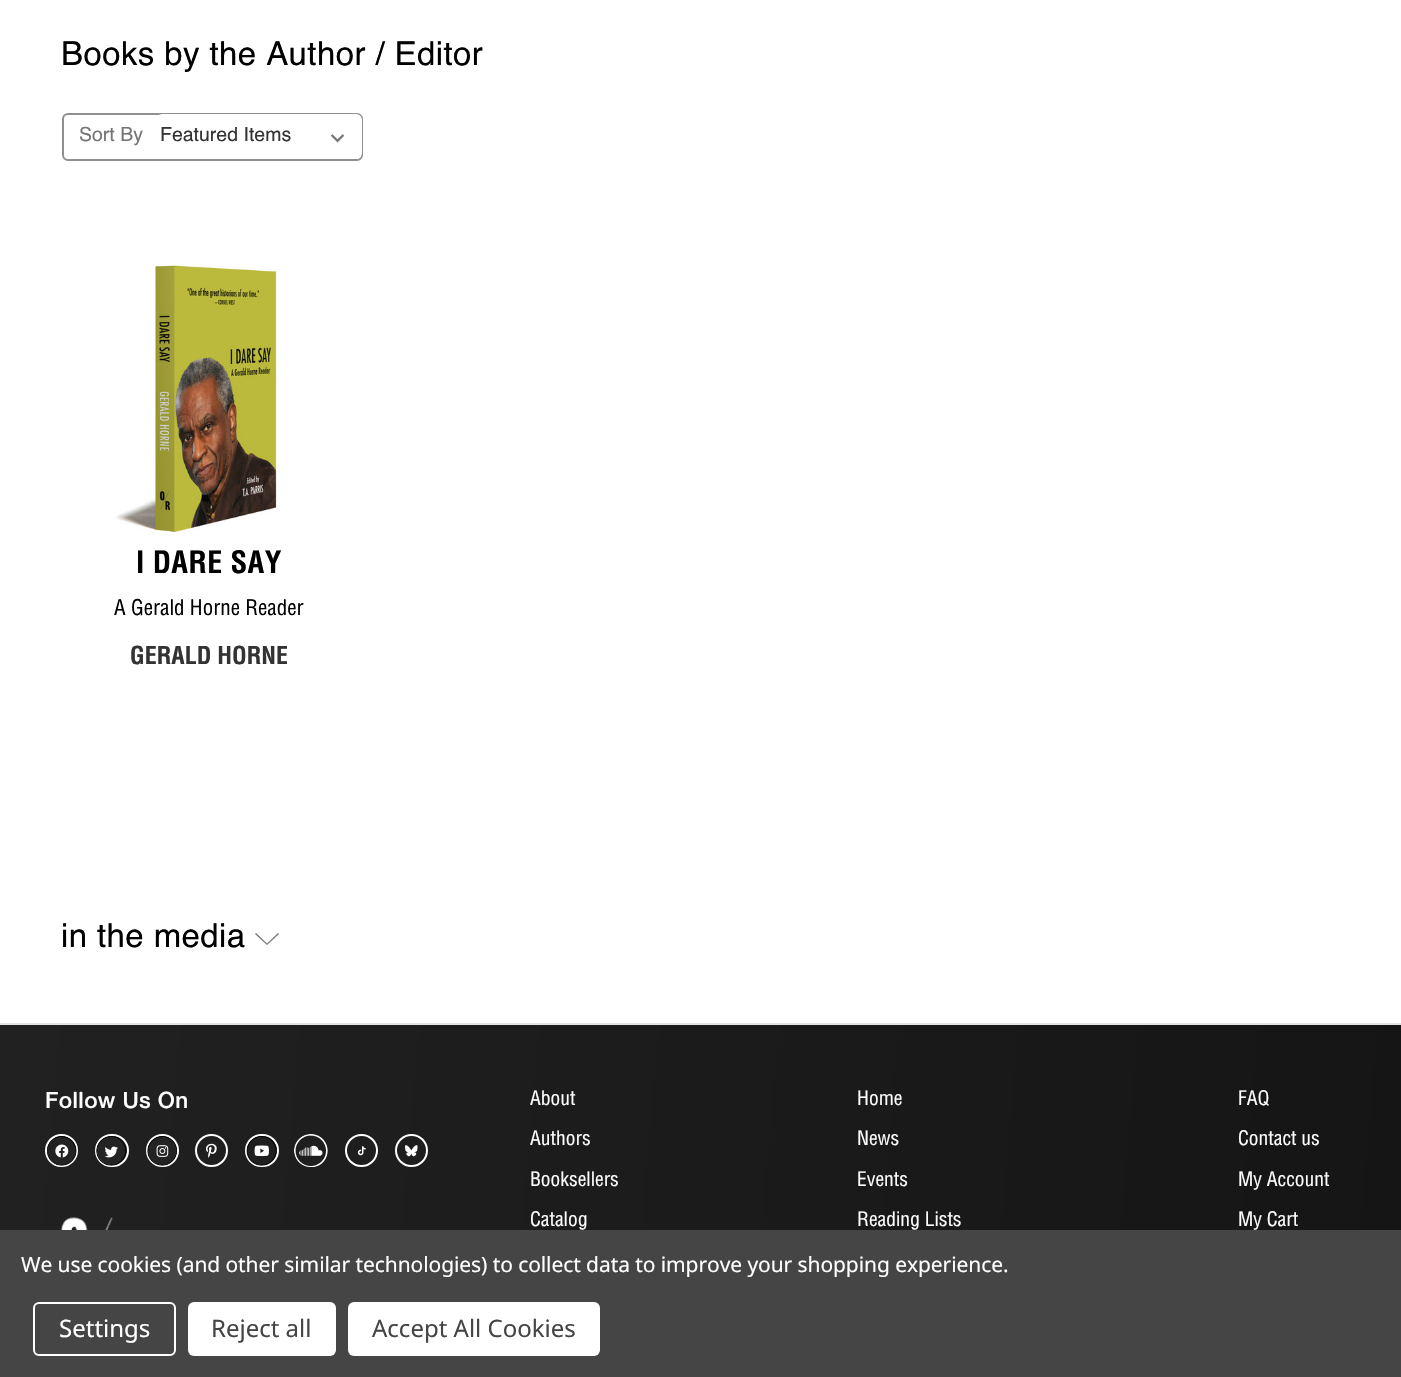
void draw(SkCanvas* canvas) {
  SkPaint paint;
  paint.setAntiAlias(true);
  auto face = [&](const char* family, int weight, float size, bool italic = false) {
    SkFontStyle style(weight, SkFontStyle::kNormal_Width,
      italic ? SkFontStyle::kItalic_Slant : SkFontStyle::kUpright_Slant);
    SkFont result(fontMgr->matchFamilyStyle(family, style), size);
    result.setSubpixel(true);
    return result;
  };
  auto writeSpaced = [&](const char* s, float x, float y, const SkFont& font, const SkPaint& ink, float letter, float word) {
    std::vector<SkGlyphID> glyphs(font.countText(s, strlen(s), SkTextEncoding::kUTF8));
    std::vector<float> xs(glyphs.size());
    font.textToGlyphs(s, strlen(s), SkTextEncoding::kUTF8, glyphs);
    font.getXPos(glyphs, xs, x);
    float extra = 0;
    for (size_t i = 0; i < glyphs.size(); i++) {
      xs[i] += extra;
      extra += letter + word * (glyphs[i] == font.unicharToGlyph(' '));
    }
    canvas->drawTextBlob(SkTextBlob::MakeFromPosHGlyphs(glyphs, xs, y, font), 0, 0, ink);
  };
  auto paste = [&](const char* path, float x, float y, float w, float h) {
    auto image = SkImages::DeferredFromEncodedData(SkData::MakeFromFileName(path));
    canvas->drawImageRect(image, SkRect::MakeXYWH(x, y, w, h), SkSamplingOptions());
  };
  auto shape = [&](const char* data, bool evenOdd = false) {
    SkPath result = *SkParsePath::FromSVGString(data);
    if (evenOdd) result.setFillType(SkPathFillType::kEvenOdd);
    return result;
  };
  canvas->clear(0xffffffff);
  paint.setStroke(true);
  paint.setStrokeWidth(2);
  paint.setColor(0xff8f8f8f);
  canvas->drawRoundRect(SkRect::MakeXYWH(63, 114, 299, 46), 5, 5, paint);
  paint.setStroke(false);
  paint.setColor(0xffffffff);
  canvas->drawRoundRect(SkRect::MakeXYWH(156, 114, 206, 45), 6, 6, paint);
  paste("img/1.png", 330, 134, 15, 9);
  paste("img/2.png", 115, 264, 165, 269);
  paint.setColor(0xff757575);
  canvas->drawPath(shape("M267 943.5L278 933L279 934L267 945L255 934L256 933Z", true), paint);
  {
    const SkColor colors[] = {0xff212121, 0xff151515};
    const float stops[] = {0, 1};
    const SkPoint ends[] = {{-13, 1172}, {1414, 1297}};
    paint.setShader(SkGradientShader::MakeLinear(ends, colors, stops, 2, SkTileMode::kClamp));
    paint.setAlpha(255);
  }
  canvas->drawRect(SkRect::MakeXYWH(0, 1025, 1401, 205), paint);
  paint.setShader(nullptr);
  paint.setColor(0xffe5e5e5);
  canvas->drawRect(SkRect::MakeXYWH(0, 1023, 1401, 2), paint);
  paint.setStroke(true);
  paint.setColor(0xffffffff);
  canvas->drawCircle(61.5f, 1150.5f, 15.5f, paint);
  paste("img/3.png", 47, 1136, 30, 30);
  canvas->drawRoundRect(SkRect::MakeXYWH(96, 1135, 32, 31), 15.5f, 15.5f, paint);
  paste("img/4.png", 96, 1136, 31, 30);
  canvas->drawCircle(162.5f, 1150.5f, 15.5f, paint);
  paste("img/5.png", 147, 1136, 30, 30);
  canvas->drawCircle(211.5f, 1150.5f, 15.5f, paint);
  paste("img/6.png", 206, 1143, 11, 15);
  canvas->drawRoundRect(SkRect::MakeXYWH(246, 1135, 32, 31), 15.5f, 15.5f, paint);
  paste("img/7.png", 246, 1136, 31, 30);
  paste("img/8.png", 294, 1134, 34, 33);
  canvas->drawCircle(361.5f, 1150.5f, 15.5f, paint);
  paste("img/9.png", 357, 1146, 9, 10);
  canvas->drawCircle(411.5f, 1150.5f, 15.5f, paint);
  paste("img/10.png", 405, 1145, 13, 12);
  paste("img/11.png", 61, 1217, 52, 13);
  paint.setStroke(false);
  paint.setColor(0xff454545);
  canvas->drawRect(SkRect::MakeXYWH(0, 1230, 1401, 147), paint);
  paint.setStroke(true);
  paint.setColor(0xffffffff);
  canvas->drawRoundRect(SkRect::MakeXYWH(34, 1303, 141, 52), 5, 5, paint);
  paint.setStroke(false);
  canvas->drawRoundRect(SkRect::MakeXYWH(188, 1302, 148, 54), 6, 6, paint);
  canvas->drawRoundRect(SkRect::MakeXYWH(348, 1302, 252, 54), 6, 6, paint);
  auto f0 = face("Helvetica", 400, 33);
  paint.setColor(0xff000000);
  writeSpaced("Books by the Author / Editor", 61, 65, f0, paint, 0.4f, 0);
  auto f1 = face("Helvetica", 400, 19.5f);
  paint.setColor(0xff757575);
  canvas->drawString("Sort By", 79, 141, f1, paint);
  paint.setColor(0xff333333);
  canvas->drawString("Featured Items", 160, 141, f1, paint);
  auto f2 = face("Helvetica", 700, 30);
  paint.setColor(0xff000000);
  writeSpaced("I DARE SAY", 136, 573, f2, paint, 0.4f, 0);
  auto f3 = face("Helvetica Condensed", 400, 21);
  canvas->drawString("A Gerald Horne Reader", 114, 615, f3, paint);
  auto f4 = face("Helvetica", 700, 24);
  paint.setColor(0xff333333);
  canvas->drawString("GERALD HORNE", 130, 664, f4, paint);
  paint.setColor(0xff000000);
  writeSpaced("in the media", 61, 947, f0, paint, 0.4f, 0);
  auto f5 = face("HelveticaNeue", 500, 22.5f);
  paint.setColor(0xffffffff);
  writeSpaced("Follow Us On", 45, 1108, f5, paint, 0.4f, 0);
  auto f6 = face("Helvetica Condensed", 400, 19.5f);
  {
    const struct { const char* s; float x, y; } items[] = {
      {"About", 530, 1105},
      {"Authors", 530, 1145},
      {"Booksellers", 530, 1186},
      {"Catalog", 530, 1226},
      {"Home", 857, 1105},
      {"News", 857, 1145},
      {"Events", 857, 1186},
      {"Reading Lists", 857, 1226},
      {"FAQ", 1238, 1105},
      {"Contact us", 1238, 1145},
      {"My Account", 1238, 1186},
      {"My Cart", 1238, 1226},
    };
    for (auto [s, x, y] : items) {
      canvas->drawString(s, x, y, f6, paint);
    }
  }
  auto f7 = face("Noto Sans", 400, 21);
  writeSpaced("We use cookies (and other similar technologies) to collect data to improve your shopping experience.", 21, 1272, f7, paint, -0.08f, 0);
  auto f8 = face("Noto Sans", 400, 24);
  canvas->drawString("Settings", 59, 1337, f8, paint);
  paint.setColor(0xff454545);
  canvas->drawString("Reject all", 211, 1337, f8, paint);
  canvas->drawString("Accept All Cookies", 372, 1337, f8, paint);
}
